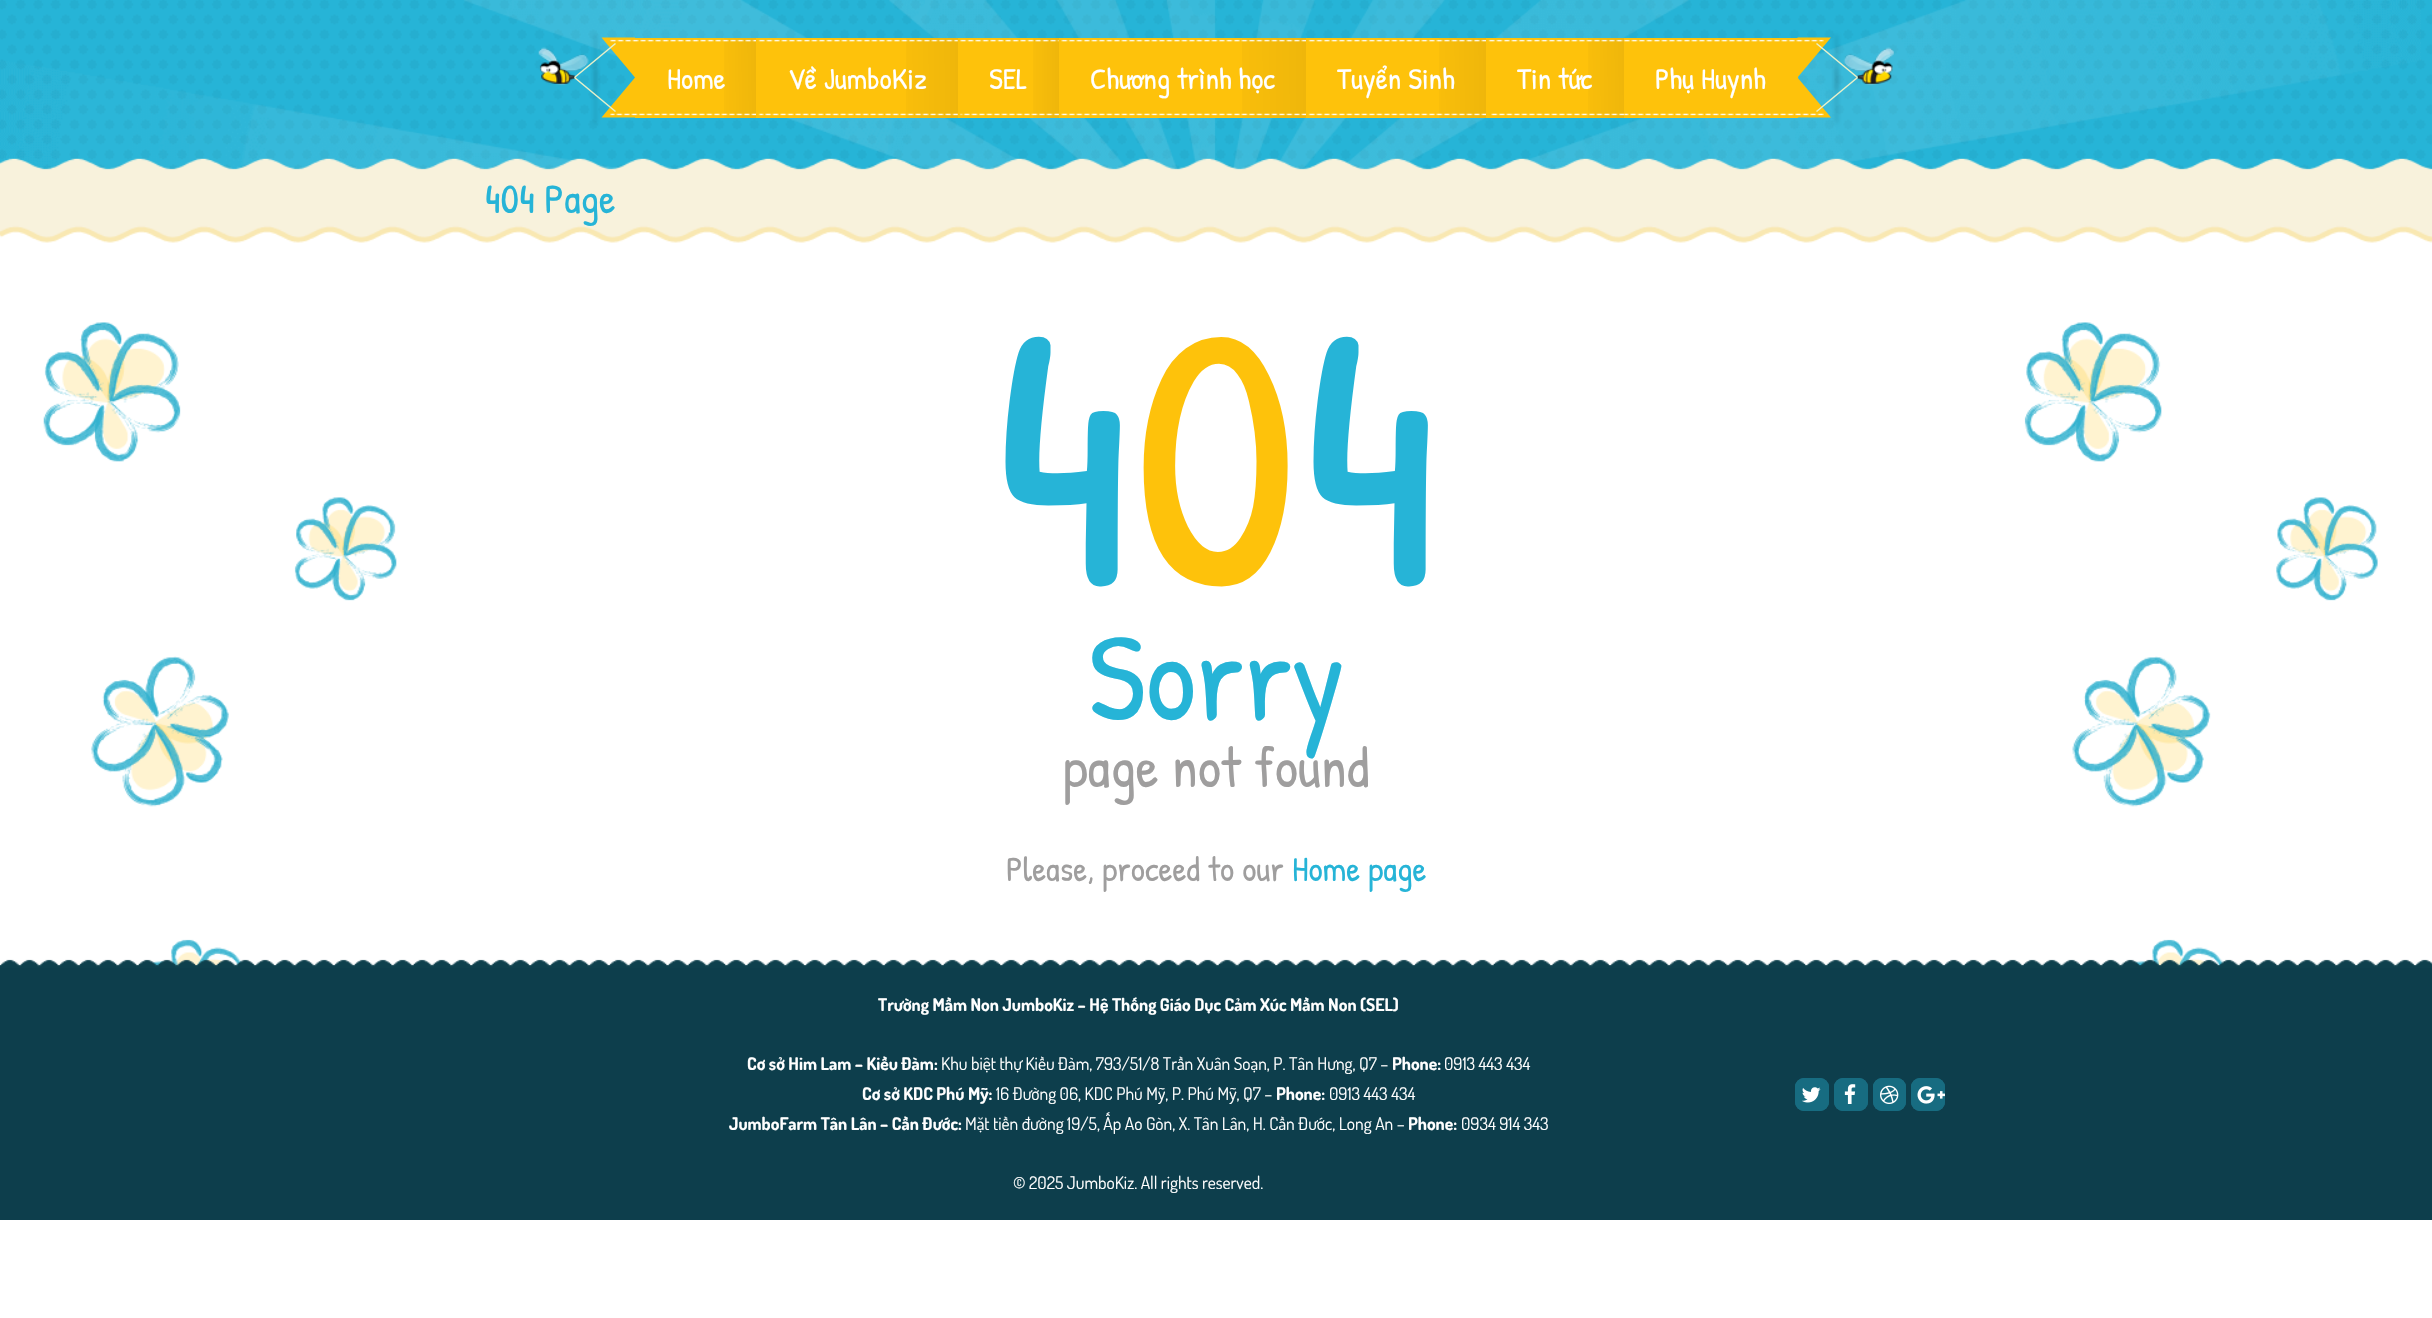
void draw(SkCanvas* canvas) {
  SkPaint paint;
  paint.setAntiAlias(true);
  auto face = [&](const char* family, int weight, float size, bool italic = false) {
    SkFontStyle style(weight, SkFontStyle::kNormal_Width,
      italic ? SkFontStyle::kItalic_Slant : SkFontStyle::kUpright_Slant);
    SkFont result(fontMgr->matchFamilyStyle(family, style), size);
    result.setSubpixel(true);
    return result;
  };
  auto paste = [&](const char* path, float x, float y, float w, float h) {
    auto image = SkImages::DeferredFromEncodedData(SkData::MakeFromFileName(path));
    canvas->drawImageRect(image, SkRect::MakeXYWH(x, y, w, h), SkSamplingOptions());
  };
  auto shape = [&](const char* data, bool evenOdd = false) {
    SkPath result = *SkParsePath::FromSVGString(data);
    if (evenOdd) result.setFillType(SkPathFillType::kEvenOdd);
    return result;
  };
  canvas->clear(0xffffffff);
  paint.setColor(0xff26b4d7);
  canvas->drawRect(SkRect::MakeXYWH(0, 0, 2432, 170), paint);
  paste("img/1.png", 0, 0, 2432, 170);
  paste("img/2.png", 0, 0, 2421, 170);
  paint.setColor(0xfffec20b);
  canvas->drawRect(SkRect::MakeXYWH(635, 38, 1163, 80), paint);
  paste("img/3.png", 538, 47, 51, 39);
  canvas->drawPath(shape("M601.5 37.5H635V77.5Z"), paint);
  canvas->drawPath(shape("M635 117.5H601.5L635 77.5Z"), paint);
  paint.setColor(0x4d000000);
  paint.setMaskFilter(SkMaskFilter::MakeBlur(kNormal_SkBlurStyle, 2));
  canvas->drawRect(SkRect::MakeXYWH(595, 35, 1, 54), paint);
  paint.setMaskFilter(nullptr);
  paint.setColor(0xffe7f0ca);
  canvas->drawPath(shape("M575 78L574 77L615 43L616 44Z"), paint);
  paint.setColor(0x4d000000);
  paint.setMaskFilter(SkMaskFilter::MakeBlur(kNormal_SkBlurStyle, 2));
  canvas->drawRect(SkRect::MakeXYWH(595, 69, 1, 54), paint);
  paint.setMaskFilter(nullptr);
  paint.setColor(0xffe7f0ca);
  canvas->drawPath(shape("M616 111L615 112L574 78L575 77Z"), paint);
  {
    const SkColor colors[] = {0x0f000000, 0x00000000};
    const float stops[] = {0, 1};
    const SkPoint ends[] = {{756, 77}, {708, 78}};
    paint.setShader(SkGradientShader::MakeLinear(ends, colors, stops, 2, SkTileMode::kClamp));
    paint.setAlpha(255);
  }
  canvas->drawRect(SkRect::MakeXYWH(724, 38, 32, 80), paint);
  {
    const SkColor colors[] = {0x0f000000, 0x00000000};
    const float stops[] = {0, 1};
    const SkPoint ends[] = {{958, 77}, {878, 78}};
    paint.setShader(SkGradientShader::MakeLinear(ends, colors, stops, 2, SkTileMode::kClamp));
    paint.setAlpha(255);
  }
  canvas->drawRect(SkRect::MakeXYWH(906, 38, 52, 80), paint);
  {
    const SkColor colors[] = {0x0f000000, 0x00000000};
    const float stops[] = {0, 1};
    const SkPoint ends[] = {{1059, 78}, {1019, 78}};
    paint.setShader(SkGradientShader::MakeLinear(ends, colors, stops, 2, SkTileMode::kClamp));
    paint.setAlpha(255);
  }
  canvas->drawRect(SkRect::MakeXYWH(1033, 38, 26, 80), paint);
  {
    const SkColor colors[] = {0x0f000000, 0x00000000};
    const float stops[] = {0, 1};
    const SkPoint ends[] = {{1306, 77}, {1206, 78}};
    paint.setShader(SkGradientShader::MakeLinear(ends, colors, stops, 2, SkTileMode::kClamp));
    paint.setAlpha(255);
  }
  canvas->drawRect(SkRect::MakeXYWH(1242, 38, 64, 80), paint);
  {
    const SkColor colors[] = {0x0f000000, 0x00000000};
    const float stops[] = {0, 1};
    const SkPoint ends[] = {{1486, 77}, {1414, 78}};
    paint.setShader(SkGradientShader::MakeLinear(ends, colors, stops, 2, SkTileMode::kClamp));
    paint.setAlpha(255);
  }
  canvas->drawRect(SkRect::MakeXYWH(1439, 38, 47, 80), paint);
  {
    const SkColor colors[] = {0x0f000000, 0x00000000};
    const float stops[] = {0, 1};
    const SkPoint ends[] = {{1624, 77}, {1569, 78}};
    paint.setShader(SkGradientShader::MakeLinear(ends, colors, stops, 2, SkTileMode::kClamp));
    paint.setAlpha(255);
  }
  canvas->drawRect(SkRect::MakeXYWH(1588, 38, 36, 80), paint);
  paint.setShader(nullptr);
  paint.setColor(0xfffec20b);
  canvas->drawPath(shape("M1797.5 37.5H1831L1797.5 77.5Z"), paint);
  canvas->drawPath(shape("M1831 117.5H1797.5V77.5Z"), paint);
  paste("img/11.png", 1843, 47, 51, 39);
  paint.setColor(0x4d000000);
  paint.setMaskFilter(SkMaskFilter::MakeBlur(kNormal_SkBlurStyle, 2));
  canvas->drawRect(SkRect::MakeXYWH(1836, 35, 1, 54), paint);
  paint.setMaskFilter(nullptr);
  paint.setColor(0xffe7f0ca);
  canvas->drawPath(shape("M1816 44L1817 43L1858 77L1857 78Z"), paint);
  paint.setColor(0x4d000000);
  paint.setMaskFilter(SkMaskFilter::MakeBlur(kNormal_SkBlurStyle, 2));
  canvas->drawRect(SkRect::MakeXYWH(1836, 69, 1, 54), paint);
  paint.setMaskFilter(nullptr);
  paint.setColor(0xffe7f0ca);
  canvas->drawPath(shape("M1857 77L1858 78L1817 112L1816 111Z"), paint);
  paste("img/12.png", 0, 158, 2432, 85);
  paste("img/13.png", 43, 322, 354, 645);
  paste("img/14.png", 2024, 322, 354, 645);
  paste("img/15.png", 0, 959, 2432, 9);
  paint.setColor(0xff0d3e4c);
  canvas->drawRect(SkRect::MakeXYWH(0, 968, 2432, 252), paint);
  paint.setColor(0xff26b4d7);
  canvas->drawRoundRect(SkRect::MakeXYWH(1795, 1078, 34, 33), 9, 9, paint);
  paint.setColor(0x66000000);
  canvas->drawRoundRect(SkRect::MakeXYWH(1795, 1078, 34, 33), 9, 9, paint);
  paste("img/16.png", 1802, 1087, 19, 16);
  paint.setColor(0xff26b4d7);
  canvas->drawRoundRect(SkRect::MakeXYWH(1834, 1078, 34, 33), 9, 9, paint);
  paint.setColor(0x66000000);
  canvas->drawRoundRect(SkRect::MakeXYWH(1834, 1078, 34, 33), 9, 9, paint);
  paste("img/17.png", 1844, 1084, 12, 20);
  paint.setColor(0xff26b4d7);
  canvas->drawRoundRect(SkRect::MakeXYWH(1873, 1078, 33, 33), 9, 9, paint);
  paint.setColor(0x66000000);
  canvas->drawRoundRect(SkRect::MakeXYWH(1873, 1078, 33, 33), 9, 9, paint);
  paste("img/18.png", 1880, 1085, 19, 19);
  paint.setColor(0xff26b4d7);
  canvas->drawRoundRect(SkRect::MakeXYWH(1911, 1078, 34, 33), 9, 9, paint);
  paint.setColor(0x66000000);
  canvas->drawRoundRect(SkRect::MakeXYWH(1911, 1078, 34, 33), 9, 9, paint);
  paste("img/19.png", 1917, 1086, 28, 18);
  auto f0 = face("Patrick Hand", 400, 30);
  paint.setColor(0xffffffff);
  canvas->drawString("Home", 667, 89, f0, paint);
  paste("img/4.png", 609, 39, 147, 77);
  canvas->drawString("Về JumboKiz", 788, 89, f0, paint);
  paste("img/5.png", 758, 39, 200, 77);
  canvas->drawString("SEL", 989, 89, f0, paint);
  paste("img/6.png", 959, 39, 100, 77);
  canvas->drawString("Chương trình học", 1090, 89, f0, paint);
  paste("img/7.png", 1061, 39, 245, 77);
  canvas->drawString("Tuyển Sinh", 1337, 89, f0, paint);
  paste("img/8.png", 1308, 39, 178, 77);
  canvas->drawString("Tin tức", 1517, 89, f0, paint);
  paste("img/9.png", 1488, 39, 136, 77);
  canvas->drawString("Phụ Huynh", 1655, 89, f0, paint);
  paste("img/10.png", 1623, 39, 201, 77);
  auto f1 = face("Patrick Hand", 400, 41.5f);
  paint.setColor(0xff26b4d7);
  canvas->drawString("404 Page", 485, 213, f1, paint);
  auto f2 = face("Patrick Hand", 400, 375);
  canvas->drawString("4", 992, 586, f2, paint);
  paint.setColor(0xfffec20b);
  canvas->drawString("0", 1132, 586, f2, paint);
  paint.setColor(0xff26b4d7);
  canvas->drawString("4", 1300, 586, f2, paint);
  auto f3 = face("Patrick Hand", 400, 125);
  canvas->drawString("Sorry", 1088, 720, f3, paint);
  auto f4 = face("Patrick Hand", 400, 57.5f);
  paint.setColor(0xff9f9e9e);
  canvas->drawString("page not found", 1063, 787, f4, paint);
  auto f5 = face("Patrick Hand", 400, 35);
  canvas->drawString("Please, proceed to our", 1006, 881, f5, paint);
  paint.setColor(0xff26b4d7);
  canvas->drawString("Home page", 1292, 881, f5, paint);
  auto f6 = face("Dosis", 700, 17.5f);
  paint.setColor(0xffffffff);
  canvas->drawString("Trường Mầm Non JumboKiz – Hệ Thống Giáo Dục Cảm Xúc Mầm Non (SEL)", 878, 1011, f6, paint);
  canvas->drawString("Cơ sở Him Lam – Kiều Đàm:", 747, 1070, f6, paint);
  auto f7 = face("Dosis", 400, 17.5f);
  canvas->drawString("Khu biệt thự Kiều Đàm, 793/51/8 Trần Xuân Soạn, P. Tân Hưng, Q7 –", 941, 1070, f7, paint);
  canvas->drawString("Phone:", 1392, 1070, f6, paint);
  canvas->drawString("0913 443 434", 1444, 1070, f7, paint);
  canvas->drawString("Cơ sở KDC Phú Mỹ:", 862, 1100, f6, paint);
  canvas->drawString("16 Đường 06, KDC Phú Mỹ, P. Phú Mỹ, Q7 –", 996, 1100, f7, paint);
  canvas->drawString("Phone:", 1276, 1100, f6, paint);
  canvas->drawString("0913 443 434", 1329, 1100, f7, paint);
  canvas->drawString("JumboFarm Tân Lân – Cần Đước:", 729, 1130, f6, paint);
  canvas->drawString("Mặt tiền đường 19/5, Ấp Ao Gòn, X. Tân Lân, H. Cần Đước, Long An –", 965, 1130, f7, paint);
  canvas->drawString("Phone:", 1408, 1130, f6, paint);
  canvas->drawString("0934 914 343", 1461, 1130, f7, paint);
  canvas->drawString("© 2025 JumboKiz. All rights reserved.", 1013, 1189, f7, paint);
}
